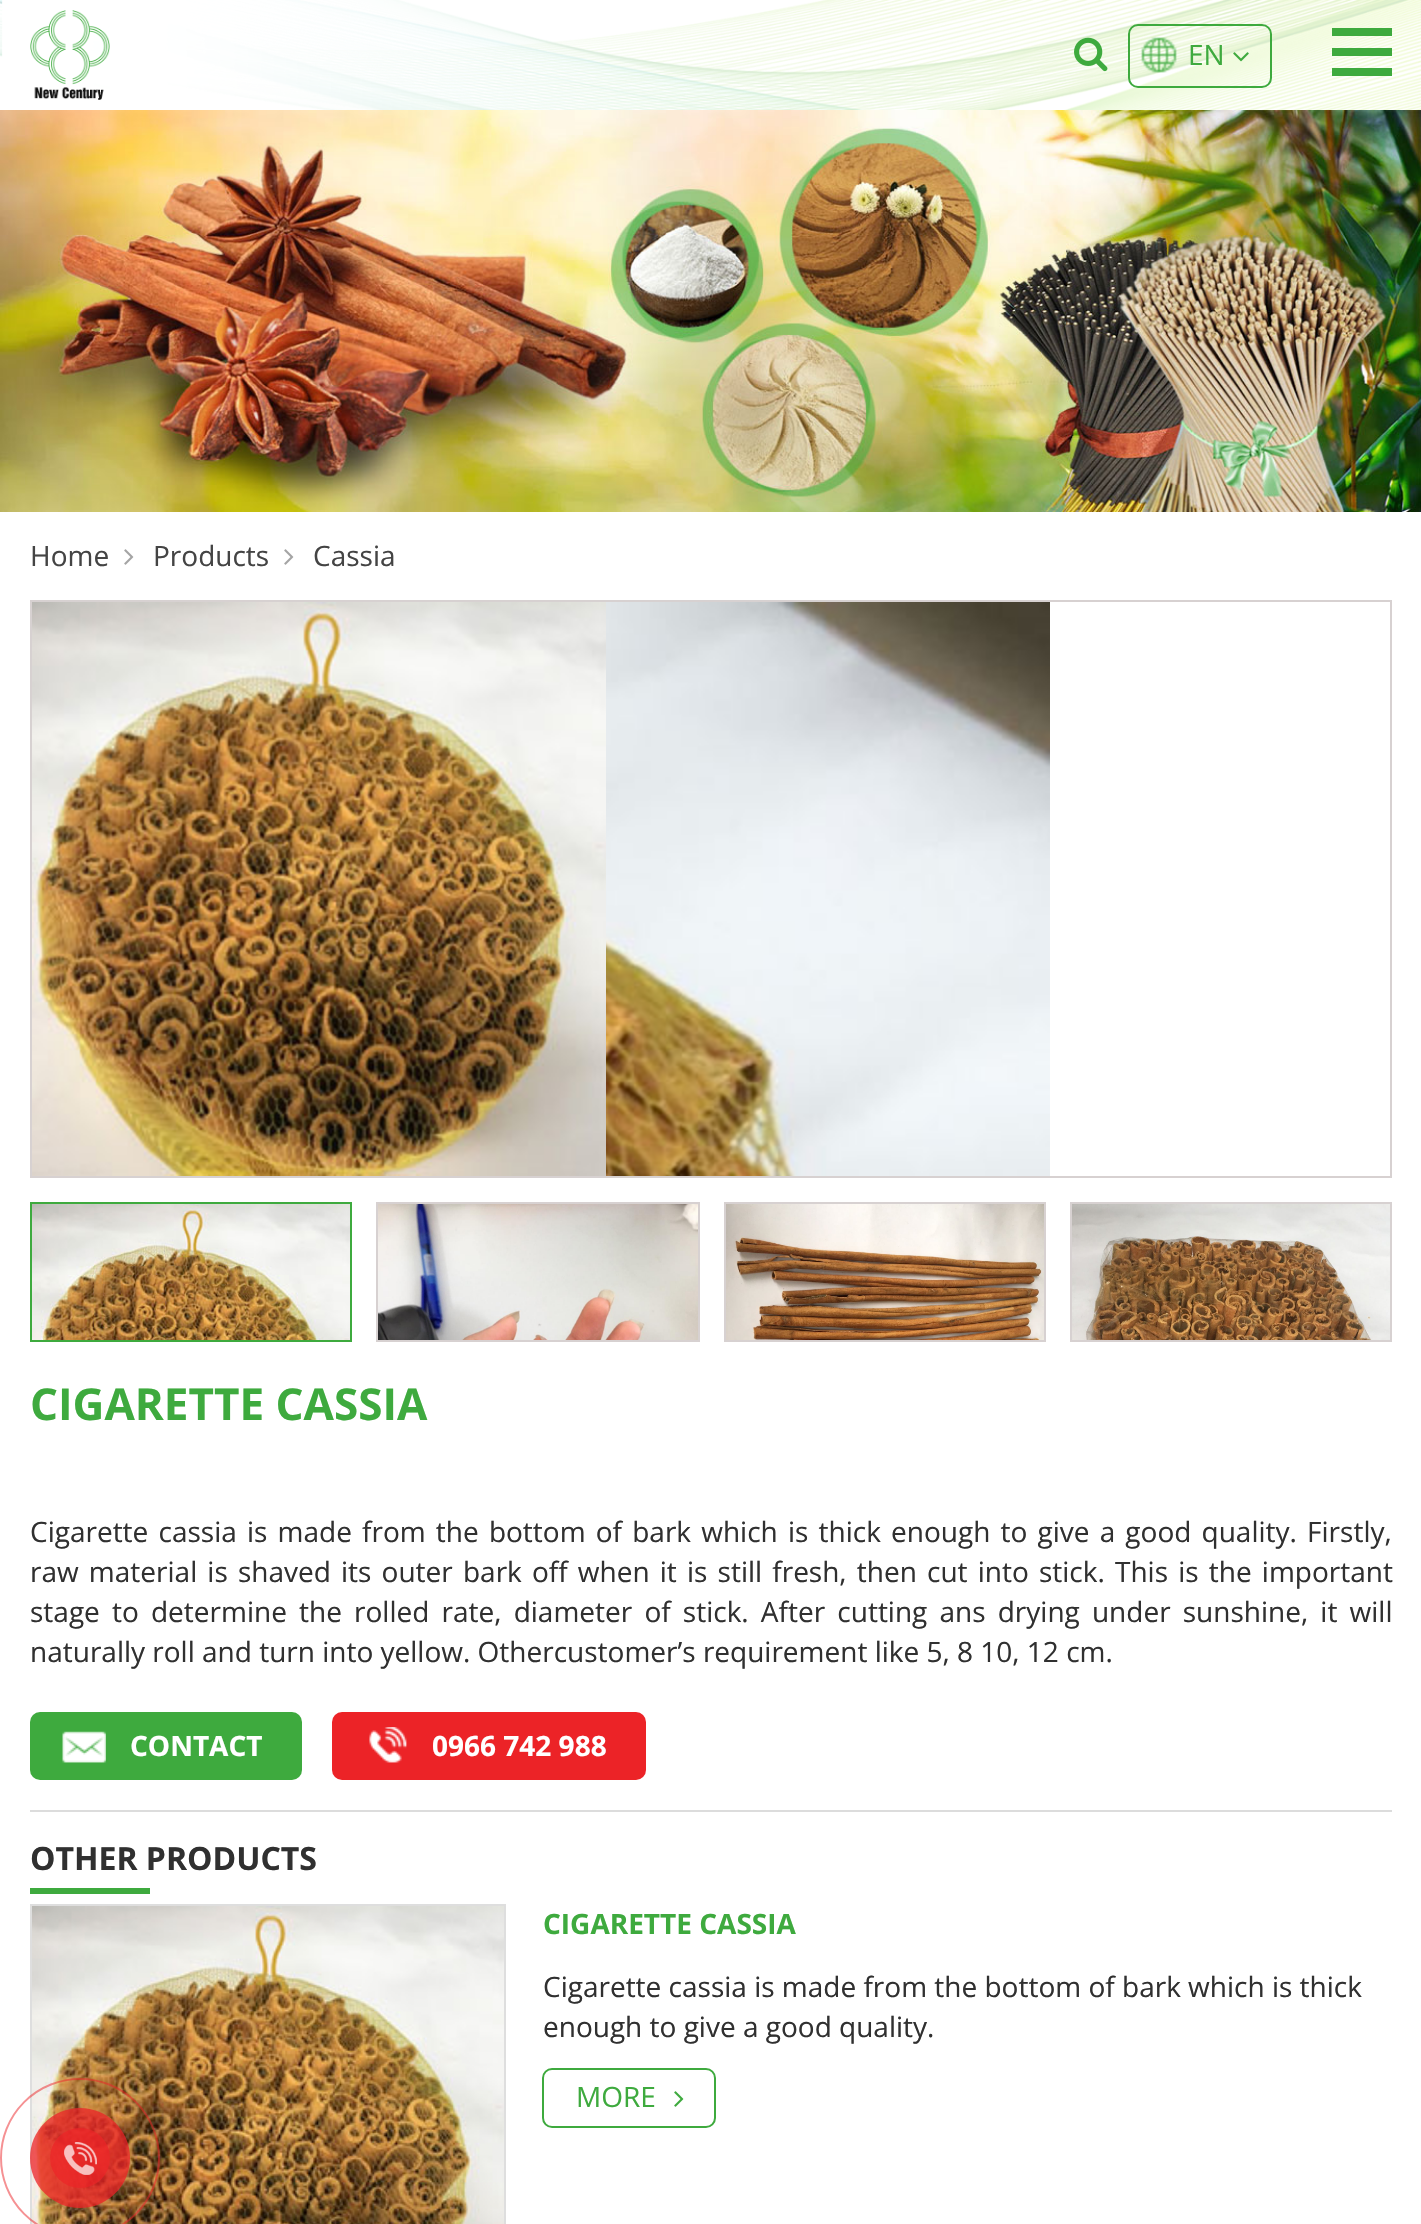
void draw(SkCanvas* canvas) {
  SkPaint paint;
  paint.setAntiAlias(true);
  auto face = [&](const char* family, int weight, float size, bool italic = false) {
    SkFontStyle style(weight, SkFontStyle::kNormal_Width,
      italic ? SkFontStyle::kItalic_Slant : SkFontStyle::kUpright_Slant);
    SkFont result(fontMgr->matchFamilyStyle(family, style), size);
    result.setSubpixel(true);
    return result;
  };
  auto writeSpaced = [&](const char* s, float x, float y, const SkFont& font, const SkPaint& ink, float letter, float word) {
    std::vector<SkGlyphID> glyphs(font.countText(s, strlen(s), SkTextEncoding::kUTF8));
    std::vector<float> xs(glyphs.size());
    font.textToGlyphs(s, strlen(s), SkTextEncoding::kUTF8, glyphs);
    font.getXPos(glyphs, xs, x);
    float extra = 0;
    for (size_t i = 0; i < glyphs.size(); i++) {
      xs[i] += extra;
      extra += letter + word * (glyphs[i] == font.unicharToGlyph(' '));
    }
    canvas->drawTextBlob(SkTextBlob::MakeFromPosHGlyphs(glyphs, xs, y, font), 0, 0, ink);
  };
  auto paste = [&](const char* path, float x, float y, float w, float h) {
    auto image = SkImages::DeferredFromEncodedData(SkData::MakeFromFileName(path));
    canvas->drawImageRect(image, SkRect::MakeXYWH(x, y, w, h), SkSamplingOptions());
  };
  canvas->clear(0xffffffff);
  paste("img/1.png", 0, 0, 1421, 110);
  paste("img/2.png", 30, 10, 80, 90);
  paste("img/3.png", 1074, 37, 34, 35);
  paint.setStroke(true);
  paint.setStrokeWidth(2);
  paint.setColor(0xff3eaa3e);
  canvas->drawRoundRect(SkRect::MakeXYWH(1129, 25, 142, 62), 9, 9, paint);
  paste("img/4.png", 1141, 37, 36, 36);
  paste("img/5.png", 1233, 52, 16, 10);
  paint.setStroke(false);
  {
    const struct { float x, y, w, h; SkColor color; } items[] = {
      {1332, 68, 60, 8, 0xff3eaa3e},
      {1332, 28, 60, 8, 0xff3eaa3e},
      {1332, 48, 60, 8, 0xff3eaa3e},
    };
    for (auto [x, y, w, h, color] : items) {
      paint.setColor(color);
      canvas->drawRect(SkRect::MakeXYWH(x, y, w, h), paint);
    }
  }
  paste("img/6.png", 0, 110, 1421, 402);
  paste("img/7.png", 124, 549, 10, 16);
  paste("img/7.png", 284, 549, 10, 16);
  paint.setColor(0xffdcdcdc);
  canvas->drawRect(SkRect::MakeXYWH(30, 1810, 1362, 2), paint);
  paint.setStroke(true);
  paint.setColor(0xffd7d1d1);
  canvas->drawRect(SkRect::MakeXYWH(31, 601, 1360, 576), paint);
  paste("img/8.png", 32, 602, 574, 574);
  paste("img/9.png", 606, 602, 444, 574);
  paint.setColor(0xff3eaa3e);
  canvas->drawRect(SkRect::MakeXYWH(31, 1203, 320, 138), paint);
  paste("img/10.png", 32, 1204, 318, 136);
  paint.setColor(0xffd7d1d1);
  canvas->drawRect(SkRect::MakeXYWH(377, 1203, 322, 138), paint);
  paste("img/11.png", 378, 1204, 320, 136);
  canvas->drawRect(SkRect::MakeXYWH(725, 1203, 320, 138), paint);
  paste("img/12.png", 726, 1204, 318, 136);
  canvas->drawRect(SkRect::MakeXYWH(1071, 1203, 320, 138), paint);
  paste("img/13.png", 1072, 1204, 318, 136);
  paint.setStroke(false);
  paint.setColor(0xff3eaa3e);
  canvas->drawRoundRect(SkRect::MakeXYWH(30, 1712, 272, 68), 10, 10, paint);
  paste("img/14.png", 62, 1731, 44, 32);
  paint.setColor(0xffec2327);
  canvas->drawRoundRect(SkRect::MakeXYWH(332, 1712, 314, 68), 10, 10, paint);
  paste("img/15.png", 369, 1727, 38, 36);
  paint.setColor(0xff3eaa3e);
  canvas->drawRect(SkRect::MakeXYWH(30, 1888, 120, 6), paint);
  paint.setStroke(true);
  paint.setColor(0xffdedede);
  canvas->drawRect(SkRect::MakeXYWH(31, 1905, 474, 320), paint);
  paste("img/16.png", 32, 1906, 472, 318);
  paint.setColor(0xff3eaa3e);
  canvas->drawRoundRect(SkRect::MakeXYWH(543, 2069, 172, 58), 9, 9, paint);
  paste("img/17.png", 674, 2091, 10, 16);
  paint.setColor(0x80ec2327);
  canvas->drawCircle(80, 2158, 79, paint);
  paint.setStroke(false);
  paint.setColor(0xbfec2327);
  canvas->drawCircle(80, 2158, 50, paint);
  paint.setColor(0xb3ec2327);
  canvas->drawCircle(80, 2158, 30, paint);
  paste("img/18.png", 64, 2142, 33, 33);
  auto f0 = face("Open Sans", 400, 28);
  paint.setColor(0xff3eaa3e);
  canvas->drawString("EN", 1188, 65, f0, paint);
  paint.setColor(0xff444444);
  {
    const struct { const char* s; float x, y; } items[] = {
      {"Home", 30, 566},
      {"Products", 153, 566},
      {"Cassia", 313, 566},
    };
    for (auto [s, x, y] : items) {
      canvas->drawString(s, x, y, f0, paint);
    }
  }
  auto f1 = face("Open Sans", 700, 44);
  paint.setColor(0xff3eaa3e);
  canvas->drawString("CIGARETTE CASSIA", 30, 1420, f1, paint);
  paint.setColor(0xff303030);
  writeSpaced("Cigarette cassia is made from the bottom of bark which is thick enough to give a good quality. Firstly,", 30, 1542, f0, paint, 0, 2.9f);
  writeSpaced("raw material is shaved its outer bark off when it is still fresh, then cut into stick. This is the important", 30, 1582, f0, paint, 0, 2.9f);
  writeSpaced("stage to determine the rolled rate, diameter of stick. After cutting ans drying under sunshine, it will", 30, 1622, f0, paint, 0, 4.9f);
  canvas->drawString("naturally roll and turn into yellow. Othercustomer’s requirement like 5, 8 10, 12 cm.", 30, 1662, f0, paint);
  auto f2 = face("Open Sans", 700, 28);
  paint.setColor(0xffffffff);
  canvas->drawString("CONTACT", 130, 1756, f2, paint);
  canvas->drawString("0966 742 988", 432, 1756, f2, paint);
  auto f3 = face("Open Sans", 700, 32);
  paint.setColor(0xff303030);
  canvas->drawString("OTHER PRODUCTS", 30, 1870, f3, paint);
  paint.setColor(0xff3eaa3e);
  canvas->drawString("CIGARETTE CASSIA", 543, 1934, f2, paint);
  paint.setColor(0xff303030);
  canvas->drawString("Cigarette cassia is made from the bottom of bark which is thick", 543, 1997, f0, paint);
  canvas->drawString("enough to give a good quality.", 543, 2037, f0, paint);
  paint.setColor(0xff3eaa3e);
  canvas->drawString("MORE", 576, 2107, f0, paint);
}
